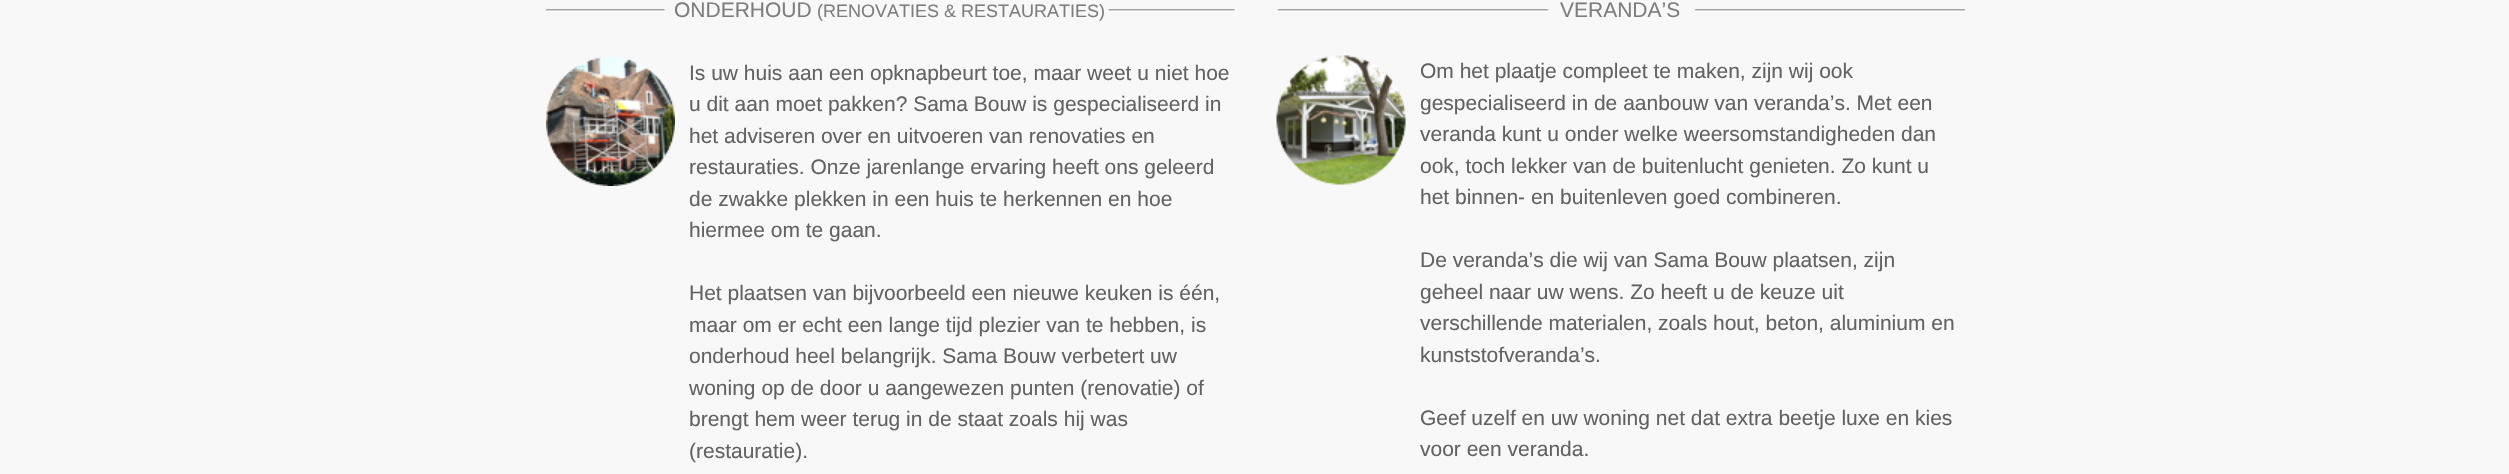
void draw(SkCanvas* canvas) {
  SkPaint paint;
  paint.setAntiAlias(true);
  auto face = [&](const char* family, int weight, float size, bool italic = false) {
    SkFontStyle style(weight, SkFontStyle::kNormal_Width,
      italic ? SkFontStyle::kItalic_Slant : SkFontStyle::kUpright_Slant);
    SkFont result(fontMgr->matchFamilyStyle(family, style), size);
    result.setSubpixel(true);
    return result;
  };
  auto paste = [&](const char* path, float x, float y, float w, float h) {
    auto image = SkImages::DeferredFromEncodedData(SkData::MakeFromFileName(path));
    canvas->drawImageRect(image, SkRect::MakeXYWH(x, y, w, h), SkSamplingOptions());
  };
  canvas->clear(0xfff8f8f8);
  paste("img/1.png", 546, 9, 689, 3);
  paste("img/2.png", 546, 57, 129, 129);
  paste("img/3.png", 1277, 9, 688, 3);
  paste("img/4.png", 1276, 55, 130, 130);
  auto f0 = face("Liberation Sans", 400, 21);
  paint.setColor(0xff7f7d7d);
  canvas->drawString("ONDERHOUD", 674, 17, f0, paint);
  auto f1 = face("Liberation Sans", 400, 18);
  canvas->drawString("(RENOVATIES & RESTAURATIES)", 817, 17, f1, paint);
  paint.setColor(0xff626262);
  {
    const struct { const char* s; float x, y; } items[] = {
      {"Is uw huis aan een opknapbeurt toe, maar weet u niet hoe", 689, 80},
      {"u dit aan moet pakken? Sama Bouw is gespecialiseerd in", 689, 111},
      {"het adviseren over en uitvoeren van renovaties en", 689, 143},
      {"restauraties. Onze jarenlange ervaring heeft ons geleerd", 689, 174},
      {"de zwakke plekken in een huis te herkennen en hoe", 689, 206},
      {"hiermee om te gaan.", 689, 237},
      {"Het plaatsen van bijvoorbeeld een nieuwe keuken is één,", 689, 300},
      {"maar om er echt een lange tijd plezier van te hebben, is", 689, 332},
      {"onderhoud heel belangrijk. Sama Bouw verbetert uw", 689, 363},
      {"woning op de door u aangewezen punten (renovatie) of", 689, 395},
      {"brengt hem weer terug in de staat zoals hij was", 689, 426},
      {"(restauratie).", 689, 458},
    };
    for (auto [s, x, y] : items) {
      canvas->drawString(s, x, y, f0, paint);
    }
  }
  paint.setColor(0xff7f7d7d);
  canvas->drawString("VERANDA’S", 1560, 17, f0, paint);
  paint.setColor(0xff626262);
  {
    const struct { const char* s; float x, y; } items[] = {
      {"Om het plaatje compleet te maken, zijn wij ook", 1420, 78},
      {"gespecialiseerd in de aanbouw van veranda’s. Met een", 1420, 110},
      {"veranda kunt u onder welke weersomstandigheden dan", 1420, 141},
      {"ook, toch lekker van de buitenlucht genieten. Zo kunt u", 1420, 173},
      {"het binnen- en buitenleven goed combineren.", 1420, 204},
      {"De veranda’s die wij van Sama Bouw plaatsen, zijn", 1420, 267},
      {"geheel naar uw wens. Zo heeft u de keuze uit", 1420, 299},
      {"verschillende materialen, zoals hout, beton, aluminium en", 1420, 330},
      {"kunststofveranda’s.", 1420, 362},
      {"Geef uzelf en uw woning net dat extra beetje luxe en kies", 1420, 425},
      {"voor een veranda.", 1420, 456},
    };
    for (auto [s, x, y] : items) {
      canvas->drawString(s, x, y, f0, paint);
    }
  }
}
